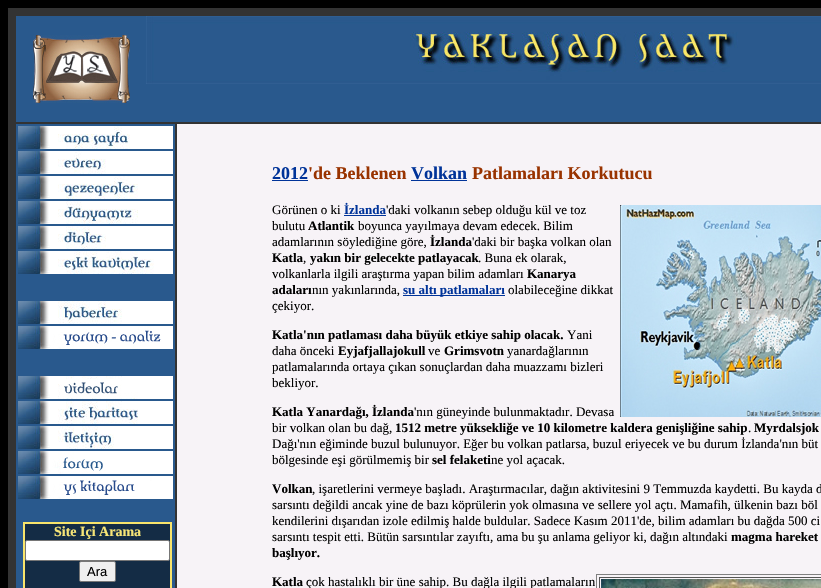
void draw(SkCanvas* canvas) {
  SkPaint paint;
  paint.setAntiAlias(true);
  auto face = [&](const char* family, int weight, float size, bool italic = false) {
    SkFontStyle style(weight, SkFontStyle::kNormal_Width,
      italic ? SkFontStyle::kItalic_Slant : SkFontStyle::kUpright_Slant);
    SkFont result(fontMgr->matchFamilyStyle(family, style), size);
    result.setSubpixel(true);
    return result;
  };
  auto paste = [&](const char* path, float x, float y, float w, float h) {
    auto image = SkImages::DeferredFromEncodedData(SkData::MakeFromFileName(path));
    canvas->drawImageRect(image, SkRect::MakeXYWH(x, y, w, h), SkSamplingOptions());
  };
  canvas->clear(0xff000000);
  paint.setStroke(true);
  paint.setStrokeWidth(3);
  paint.setColor(0xff333333);
  canvas->drawRect(SkRect::MakeXYWH(9.5f, 9.5f, 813, 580), paint);
  paint.setStroke(false);
  paint.setColor(0xfff7f3f7);
  canvas->drawRect(SkRect::MakeXYWH(177, 124, 644, 464), paint);
  paint.setStroke(true);
  paint.setStrokeWidth(1);
  paint.setColor(0xff333333);
  canvas->drawRect(SkRect::MakeXYWH(11.5f, 11.5f, 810, 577), paint);
  paint.setStrokeWidth(3);
  canvas->drawRect(SkRect::MakeXYWH(13.5f, 13.5f, 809, 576), paint);
  paint.setStroke(false);
  paint.setColor(0xff29598d);
  canvas->drawRect(SkRect::MakeXYWH(15.5f, 15.5f, 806, 107), paint);
  paint.setStroke(true);
  paint.setStrokeWidth(1);
  paint.setColor(0xff333333);
  canvas->drawRect(SkRect::MakeXYWH(15.5f, 15.5f, 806, 107), paint);
  paste("img/1.png", 33, 35, 97, 68);
  paste("img/2.png", 146, 16, 675, 68);
  paint.setStroke(false);
  paint.setColor(0xff29598d);
  canvas->drawRect(SkRect::MakeXYWH(15.5f, 123.5f, 160, 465), paint);
  paint.setStroke(true);
  paint.setColor(0xff333333);
  canvas->drawRect(SkRect::MakeXYWH(15.5f, 123.5f, 160, 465), paint);
  paste("img/3.png", 18, 126, 155, 23);
  paste("img/4.png", 18, 151, 155, 23);
  paste("img/5.png", 18, 176, 155, 23);
  paste("img/6.png", 18, 201, 155, 23);
  paste("img/7.png", 18, 226, 155, 23);
  paste("img/8.png", 18, 251, 155, 23);
  paste("img/9.png", 18, 301, 155, 23);
  paste("img/10.png", 18, 326, 155, 23);
  paste("img/11.png", 18, 376, 155, 23);
  paste("img/12.png", 18, 401, 155, 23);
  paste("img/13.png", 18, 426, 155, 23);
  paste("img/14.png", 18, 451, 155, 23);
  paste("img/15.png", 18, 476, 155, 23);
  paint.setStroke(false);
  paint.setColor(0xff142c45);
  canvas->drawRect(SkRect::MakeXYWH(25, 524, 145, 64), paint);
  paint.setStroke(true);
  paint.setColor(0xfff8e46b);
  canvas->drawRect(SkRect::MakeXYWH(23.5f, 522.5f, 148, 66), paint);
  canvas->drawRect(SkRect::MakeXYWH(24.5f, 523.5f, 146, 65), paint);
  paint.setStroke(false);
  paint.setColor(0xffffffff);
  canvas->drawRoundRect(SkRect::MakeXYWH(25.5f, 540.5f, 144, 20), 1.5f, 1.5f, paint);
  paint.setStroke(true);
  paint.setColor(0xff767676);
  canvas->drawRoundRect(SkRect::MakeXYWH(25.5f, 540.5f, 144, 20), 1.5f, 1.5f, paint);
  paint.setStroke(false);
  paint.setColor(0xffefefef);
  canvas->drawRoundRect(SkRect::MakeXYWH(79.5f, 561.5f, 36, 20), 1.5f, 1.5f, paint);
  paint.setStroke(true);
  paint.setColor(0xff767676);
  canvas->drawRoundRect(SkRect::MakeXYWH(79.5f, 561.5f, 36, 20), 1.5f, 1.5f, paint);
  paint.setColor(0xff333333);
  canvas->drawRect(SkRect::MakeXYWH(176.5f, 123.5f, 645, 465), paint);
  paint.setStroke(false);
  {
    const struct { float x, y, w, h; SkColor color; } items[] = {
      {272, 180, 36, 1, 0xff003399},
      {411, 180, 56, 1, 0xff003399},
      {344, 215, 42, 1, 0xff003399},
      {403, 295, 102, 1, 0xff003399},
    };
    for (auto [x, y, w, h, color] : items) {
      paint.setColor(color);
      canvas->drawRect(SkRect::MakeXYWH(x, y, w, h), paint);
    }
  }
  paste("img/16.png", 620, 205, 201, 212);
  {
    const struct { float x, y, w, h; SkColor color; } items[] = {
      {596, 574, 225, 1, 0xff808080},
      {596, 574, 1, 14, 0xff808080},
      {599, 577, 222, 1, 0xff555555},
      {599, 577, 1, 11, 0xff555555},
    };
    for (auto [x, y, w, h, color] : items) {
      paint.setColor(color);
      canvas->drawRect(SkRect::MakeXYWH(x, y, w, h), paint);
    }
  }
  paste("img/17.png", 601, 579, 220, 9);
  auto f0 = face("Liberation Serif", 700, 14);
  paint.setColor(0xfff7e577);
  canvas->drawString("Site Içi Arama", 54, 536, f0, paint);
  auto f1 = face("Liberation Sans", 400, 13);
  paint.setColor(0xff000000);
  canvas->drawString("Ara", 87, 576, f1, paint);
  auto f2 = face("Liberation Serif", 700, 18);
  paint.setColor(0xff003399);
  canvas->drawString("2012", 272, 179, f2, paint);
  paint.setColor(0xff993300);
  canvas->drawString("'de Beklenen", 308, 179, f2, paint);
  paint.setColor(0xff003399);
  canvas->drawString("Volkan", 411, 179, f2, paint);
  paint.setColor(0xff993300);
  canvas->drawString("Patlamaları Korkutucu", 472, 179, f2, paint);
  auto f3 = face("Liberation Serif", 400, 13);
  paint.setColor(0xff000000);
  canvas->drawString("Görünen o ki", 272, 214, f3, paint);
  auto f4 = face("Liberation Serif", 700, 13);
  paint.setColor(0xff003399);
  canvas->drawString("İzlanda", 344, 214, f4, paint);
  paint.setColor(0xff000000);
  canvas->drawString("'daki volkanın sebep olduğu kül ve toz", 386, 214, f3, paint);
  canvas->drawString("bulutu", 272, 230, f3, paint);
  canvas->drawString("Atlantik", 308, 230, f4, paint);
  canvas->drawString("boyunca yayılmaya devam edecek. Bilim", 358, 230, f3, paint);
  canvas->drawString("adamlarının söylediğine göre,", 272, 246, f3, paint);
  canvas->drawString("İzlanda", 430, 246, f4, paint);
  canvas->drawString("'daki bir başka volkan olan", 472, 246, f3, paint);
  canvas->drawString("Katla", 272, 262, f4, paint);
  canvas->drawString(",", 303, 262, f3, paint);
  canvas->drawString("yakın bir gelecekte patlayacak", 310, 262, f4, paint);
  canvas->drawString(". Buna ek olarak,", 478, 262, f3, paint);
  canvas->drawString("volkanlarla ilgili araştırma yapan bilim adamları", 272, 278, f3, paint);
  canvas->drawString("Kanarya", 527, 278, f4, paint);
  canvas->drawString("adaları", 272, 294, f4, paint);
  canvas->drawString("nın yakınlarında,", 312, 294, f3, paint);
  paint.setColor(0xff003399);
  canvas->drawString("su altı patlamaları", 403, 294, f4, paint);
  paint.setColor(0xff000000);
  canvas->drawString("olabileceğine dikkat", 508, 294, f3, paint);
  canvas->drawString("çekiyor.", 272, 310, f3, paint);
  canvas->drawString("Katla'nın patlaması daha büyük etkiye sahip olacak.", 272, 339, f4, paint);
  canvas->drawString("Yani", 567, 339, f3, paint);
  canvas->drawString("daha önceki", 272, 355, f3, paint);
  canvas->drawString("Eyjafjallajokull", 338, 355, f4, paint);
  canvas->drawString("ve", 428, 355, f3, paint);
  canvas->drawString("Grimsvotn", 444, 355, f4, paint);
  {
    const struct { const char* s; float x, y; } items[] = {
      {"yanardağlarının", 507, 355},
      {"patlamalarında ortaya çıkan sonuçlardan daha muazzamı bizleri", 272, 371},
      {"bekliyor.", 272, 387},
    };
    for (auto [s, x, y] : items) {
      canvas->drawString(s, x, y, f3, paint);
    }
  }
  canvas->drawString("Katla Yanardağı, İzlanda", 272, 416, f4, paint);
  canvas->drawString("'nın güneyinde bulunmaktadır. Devasa", 414, 416, f3, paint);
  canvas->drawString("bir volkan olan bu dağ,", 272, 432, f3, paint);
  canvas->drawString("1512 metre yüksekliğe ve 10 kilometre kaldera genişliğine sahip", 395, 432, f4, paint);
  canvas->drawString(".", 748, 432, f3, paint);
  canvas->drawString("Myrdalsjok", 754, 432, f4, paint);
  canvas->drawString("Dağı'nın eğiminde buzul bulunuyor. Eğer bu volkan patlarsa, buzul eriyecek ve bu durum İzlanda'nın büt", 272, 448, f3, paint);
  canvas->drawString("bölgesinde eşi görülmemiş bir", 272, 464, f3, paint);
  canvas->drawString("sel felaketi", 432, 464, f4, paint);
  canvas->drawString("ne yol açacak.", 491, 464, f3, paint);
  canvas->drawString("Volkan", 272, 493, f4, paint);
  {
    const struct { const char* s; float x, y; } items[] = {
      {", işaretlerini vermeye başladı. Araştırmacılar, dağın aktivitesini 9 Temmuzda kaydetti. Bu kayda d", 312, 493},
      {"sarsıntı değildi ancak yine de bazı köprülerin yok olmasına ve sellere yol açtı. Mamafih, ülkenin bazı böl", 272, 509},
      {"kendilerini dışarıdan izole edilmiş halde buldular. Sadece Kasım 2011'de, bilim adamları bu dağda 500 ci", 272, 525},
      {"sarsıntı tespit etti. Bütün sarsıntılar zayıftı, ama bu şu anlama geliyor ki, dağın altındaki", 272, 541},
    };
    for (auto [s, x, y] : items) {
      canvas->drawString(s, x, y, f3, paint);
    }
  }
  {
    const struct { const char* s; float x, y; } items[] = {
      {"magma hareket", 731, 541},
      {"başlıyor.", 272, 557},
      {"Katla", 272, 586},
    };
    for (auto [s, x, y] : items) {
      canvas->drawString(s, x, y, f4, paint);
    }
  }
  canvas->drawString("çok hastalıklı bir üne sahip. Bu dağla ilgili patlamaların", 306, 586, f3, paint);
}
